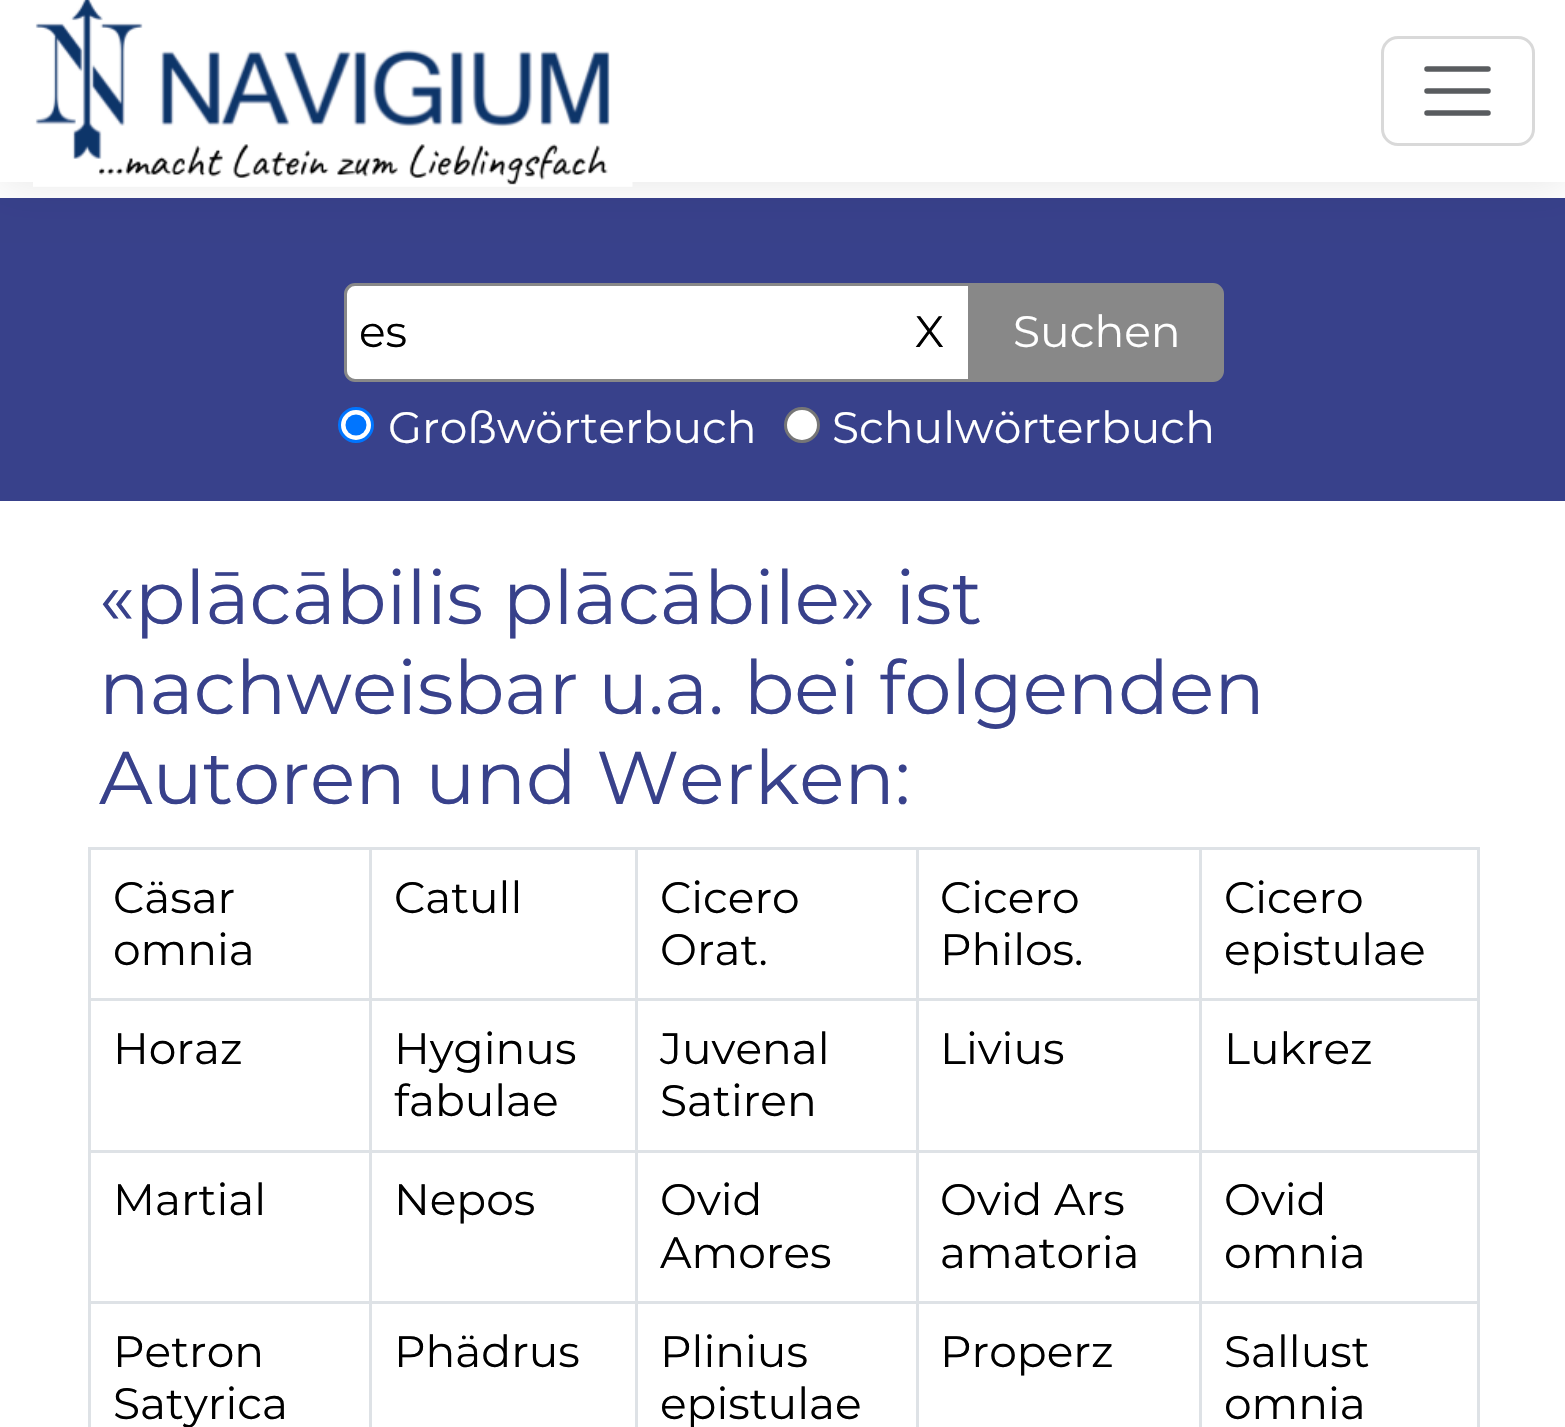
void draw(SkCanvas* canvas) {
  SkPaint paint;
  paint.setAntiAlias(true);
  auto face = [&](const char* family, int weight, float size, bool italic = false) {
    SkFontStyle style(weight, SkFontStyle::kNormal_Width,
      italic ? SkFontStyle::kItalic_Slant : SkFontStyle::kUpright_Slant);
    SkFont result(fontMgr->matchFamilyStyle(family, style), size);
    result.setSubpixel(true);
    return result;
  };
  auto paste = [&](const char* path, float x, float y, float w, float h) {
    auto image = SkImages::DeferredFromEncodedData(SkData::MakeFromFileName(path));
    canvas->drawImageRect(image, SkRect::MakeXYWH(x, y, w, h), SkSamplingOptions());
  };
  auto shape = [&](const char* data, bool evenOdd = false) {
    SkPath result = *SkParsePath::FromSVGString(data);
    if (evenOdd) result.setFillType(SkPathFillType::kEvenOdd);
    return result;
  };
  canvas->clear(0xffffffff);
  paint.setColor(0xff38418b);
  canvas->drawRect(SkRect::MakeXYWH(0, 198, 1565, 303), paint);
  paint.setColor(0x1a000000);
  paint.setMaskFilter(SkMaskFilter::MakeBlur(kNormal_SkBlurStyle, 20.5f));
  canvas->drawRect(SkRect::MakeXYWH(0, 0, 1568, 182), paint);
  paint.setMaskFilter(nullptr);
  paint.setColor(0xffffffff);
  canvas->drawRect(SkRect::MakeXYWH(0, 0, 1565, 182), paint);
  paste("img/1.png", 33, 0, 600, 187);
  paint.setStroke(true);
  paint.setStrokeWidth(3);
  paint.setColor(0xffd9d9d9);
  canvas->drawRoundRect(SkRect::MakeXYWH(1382.5f, 37.5f, 151, 107), 15.5f, 15.5f, paint);
  paint.setStrokeWidth(5.5f);
  paint.setStrokeCap(SkPaint::kRound_Cap);
  paint.setColor(0xff595c5f);
  canvas->drawPath(shape("M1427 69H1488M1427 91H1488M1427 113H1488"), paint);
  paint.setStroke(false);
  paint.setColor(0xffffffff);
  canvas->drawPath(shape("M355 284.5H969.5V380.5H355C350 380.5 345.5 376 345.5 371V294C345.5 289 350 284.5 355 284.5Z"), paint);
  paint.setStroke(true);
  paint.setStrokeWidth(3);
  paint.setStrokeCap(SkPaint::kButt_Cap);
  paint.setColor(0xff888888);
  canvas->drawPath(shape("M355 284.5H969.5V380.5H355C350 380.5 345.5 376 345.5 371V294C345.5 289 350 284.5 355 284.5Z"), paint);
  paint.setStroke(false);
  canvas->drawPath(shape("M972.5 284.5H1213C1218 284.5 1222.5 289 1222.5 294V371C1222.5 376 1218 380.5 1213 380.5H972.5Z"), paint);
  paint.setStroke(true);
  canvas->drawPath(shape("M972.5 284.5H1213C1218 284.5 1222.5 289 1222.5 294V371C1222.5 376 1218 380.5 1213 380.5H972.5Z"), paint);
  paint.setStroke(false);
  paint.setColor(0xffffffff);
  canvas->drawCircle(356, 425, 16.5f, paint);
  paint.setStroke(true);
  paint.setColor(0xff0075ff);
  canvas->drawCircle(356, 425, 16.5f, paint);
  paint.setStroke(false);
  canvas->drawCircle(356, 425, 10.5f, paint);
  paint.setColor(0xffffffff);
  canvas->drawCircle(802, 425, 16.5f, paint);
  paint.setStroke(true);
  paint.setColor(0xff767676);
  canvas->drawCircle(802, 425, 16.5f, paint);
  paint.setStroke(false);
  {
    const struct { float x, y, w, h; SkColor color; } items[] = {
      {88, 847, 1392, 3, 0xffdee2e6},
      {88, 998, 1392, 3, 0xffdee2e6},
      {88, 1150, 1392, 3, 0xffdee2e6},
      {88, 1301, 1392, 3, 0xffdee2e6},
      {88, 847, 3, 580, 0xffdee2e6},
      {369, 847, 3, 580, 0xffdee2e6},
      {635, 847, 3, 580, 0xffdee2e6},
      {916, 847, 3, 580, 0xffdee2e6},
      {1477, 847, 3, 580, 0xffdee2e6},
      {1199, 847, 3, 580, 0xffdee2e6},
    };
    for (auto [x, y, w, h, color] : items) {
      paint.setColor(color);
      canvas->drawRect(SkRect::MakeXYWH(x, y, w, h), paint);
    }
  }
  auto f0 = face("Montserrat", 400, 44);
  paint.setColor(0xff000000);
  canvas->drawString("es", 359, 347, f0, paint);
  canvas->drawString("X", 915, 347, f0, paint);
  paint.setColor(0xffffffff);
  {
    const struct { const char* s; float x, y; } items[] = {
      {"Suchen", 1013, 347},
      {"Großwörterbuch", 388, 443},
      {"Schulwörterbuch", 832, 443},
    };
    for (auto [s, x, y] : items) {
      canvas->drawString(s, x, y, f0, paint);
    }
  }
  auto f1 = face("Montserrat", 400, 74.75f);
  paint.setColor(0xff38418b);
  {
    const struct { const char* s; float x, y; } items[] = {
      {"«plācābilis plācābile» ist", 99, 624},
      {"nachweisbar u.a. bei folgenden", 99, 714},
      {"Autoren und Werken:", 99, 804},
    };
    for (auto [s, x, y] : items) {
      canvas->drawString(s, x, y, f1, paint);
    }
  }
  paint.setColor(0xff000000);
  {
    const struct { const char* s; float x, y; } items[] = {
      {"Cäsar", 113, 913},
      {"omnia", 113, 965},
      {"Catull", 394, 913},
      {"Cicero", 660, 913},
      {"Orat.", 660, 965},
      {"Cicero", 940, 913},
      {"Philos.", 940, 965},
      {"Cicero", 1224, 913},
      {"epistulae", 1224, 965},
      {"Horaz", 113, 1064},
      {"Hyginus", 394, 1064},
      {"fabulae", 394, 1116},
      {"Juvenal", 660, 1064},
      {"Satiren", 660, 1116},
      {"Livius", 940, 1064},
      {"Lukrez", 1224, 1064},
      {"Martial", 113, 1215},
      {"Nepos", 394, 1215},
      {"Ovid", 660, 1215},
      {"Amores", 660, 1268},
      {"Ovid Ars", 940, 1215},
      {"amatoria", 940, 1268},
      {"Ovid", 1224, 1215},
      {"omnia", 1224, 1268},
      {"Petron", 113, 1367},
      {"Satyrica", 113, 1419},
      {"Phädrus", 394, 1367},
      {"Plinius", 660, 1367},
      {"epistulae", 660, 1419},
      {"Properz", 940, 1367},
      {"Sallust", 1224, 1367},
      {"omnia", 1224, 1419},
    };
    for (auto [s, x, y] : items) {
      canvas->drawString(s, x, y, f0, paint);
    }
  }
}
